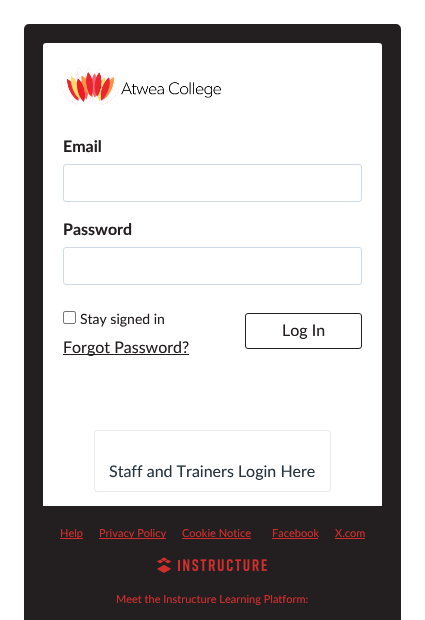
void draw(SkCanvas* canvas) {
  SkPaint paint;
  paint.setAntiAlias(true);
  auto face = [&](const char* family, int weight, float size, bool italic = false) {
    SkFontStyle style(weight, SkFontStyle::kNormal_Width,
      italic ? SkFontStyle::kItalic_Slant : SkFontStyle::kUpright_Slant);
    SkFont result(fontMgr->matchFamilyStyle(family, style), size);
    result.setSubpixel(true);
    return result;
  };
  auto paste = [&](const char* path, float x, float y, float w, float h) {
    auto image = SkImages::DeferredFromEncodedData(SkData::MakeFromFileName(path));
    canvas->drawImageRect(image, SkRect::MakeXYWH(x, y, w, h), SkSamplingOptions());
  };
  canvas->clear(0xffffffff);
  paint.setColor(0xff231f20);
  canvas->drawRoundRect(SkRect::MakeXYWH(26.5f, 26.5f, 372, 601), 2.5f, 2.5f, paint);
  paint.setStroke(true);
  paint.setStrokeWidth(5);
  canvas->drawRoundRect(SkRect::MakeXYWH(26.5f, 26.5f, 372, 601), 2.5f, 2.5f, paint);
  paint.setStroke(false);
  paint.setColor(0xffffffff);
  canvas->drawRoundRect(SkRect::MakeXYWH(42, 42, 341, 465), 4, 4, paint);
  paint.setStroke(true);
  paint.setStrokeWidth(2);
  paint.setColor(0xff231f20);
  canvas->drawRoundRect(SkRect::MakeXYWH(42, 42, 341, 465), 4, 4, paint);
  paste("img/1.png", 61, 67, 160, 38);
  paint.setStroke(false);
  paint.setColor(0xffffffff);
  canvas->drawRect(SkRect::MakeXYWH(43, 503, 339, 3), paint);
  paint.setStroke(true);
  paint.setStrokeWidth(1);
  paint.setColor(0xffd0dae2);
  canvas->drawRoundRect(SkRect::MakeXYWH(63.5f, 164.5f, 298, 37), 2.5f, 2.5f, paint);
  canvas->drawRoundRect(SkRect::MakeXYWH(63.5f, 247.5f, 298, 37), 2.5f, 2.5f, paint);
  paint.setColor(0xff767676);
  canvas->drawRoundRect(SkRect::MakeXYWH(63.5f, 311.5f, 12, 12), 1.5f, 1.5f, paint);
  paint.setStroke(false);
  paint.setColor(0xff231f20);
  canvas->drawRect(SkRect::MakeXYWH(63, 354, 126, 1), paint);
  paint.setStroke(true);
  canvas->drawRoundRect(SkRect::MakeXYWH(245.5f, 313.5f, 116, 35), 2.5f, 2.5f, paint);
  paint.setColor(0xffe8eaec);
  canvas->drawRoundRect(SkRect::MakeXYWH(94.5f, 430.5f, 236, 61), 2.5f, 2.5f, paint);
  paint.setStroke(false);
  {
    const struct { float x, y, w, h; SkColor color; } items[] = {
      {60, 538, 23, 1, 0xffd12e2e},
      {99, 538, 67, 1, 0xffd12e2e},
      {182, 538, 69, 1, 0xffd12e2e},
      {272, 538, 46, 1, 0xffd12e2e},
      {335, 538, 30, 1, 0xffd12e2e},
    };
    for (auto [x, y, w, h, color] : items) {
      paint.setColor(color);
      canvas->drawRect(SkRect::MakeXYWH(x, y, w, h), paint);
    }
  }
  paste("img/2.png", 157, 557, 110, 16);
  auto f0 = face("Lato", 700, 16);
  paint.setColor(0xff231f20);
  canvas->drawString("Email", 63, 152, f0, paint);
  canvas->drawString("Password", 63, 235, f0, paint);
  auto f1 = face("Lato", 400, 14);
  canvas->drawString("Stay signed in", 80, 324, f1, paint);
  auto f2 = face("Lato", 400, 16);
  canvas->drawString("Forgot Password?", 63, 353, f2, paint);
  canvas->drawString("Log In", 282, 336, f2, paint);
  paint.setColor(0xff273540);
  canvas->drawString("Staff and Trainers Login Here", 109, 477, f2, paint);
  auto f3 = face("Lato", 400, 11);
  paint.setColor(0xffd12e2e);
  {
    const struct { const char* s; float x, y; } items[] = {
      {"Help", 60, 537},
      {"Privacy Policy", 99, 537},
      {"Cookie Notice", 182, 537},
      {"Facebook", 272, 537},
      {"X.com", 335, 537},
      {"Meet the Instructure Learning Platform:", 116, 603},
    };
    for (auto [s, x, y] : items) {
      canvas->drawString(s, x, y, f3, paint);
    }
  }
}
